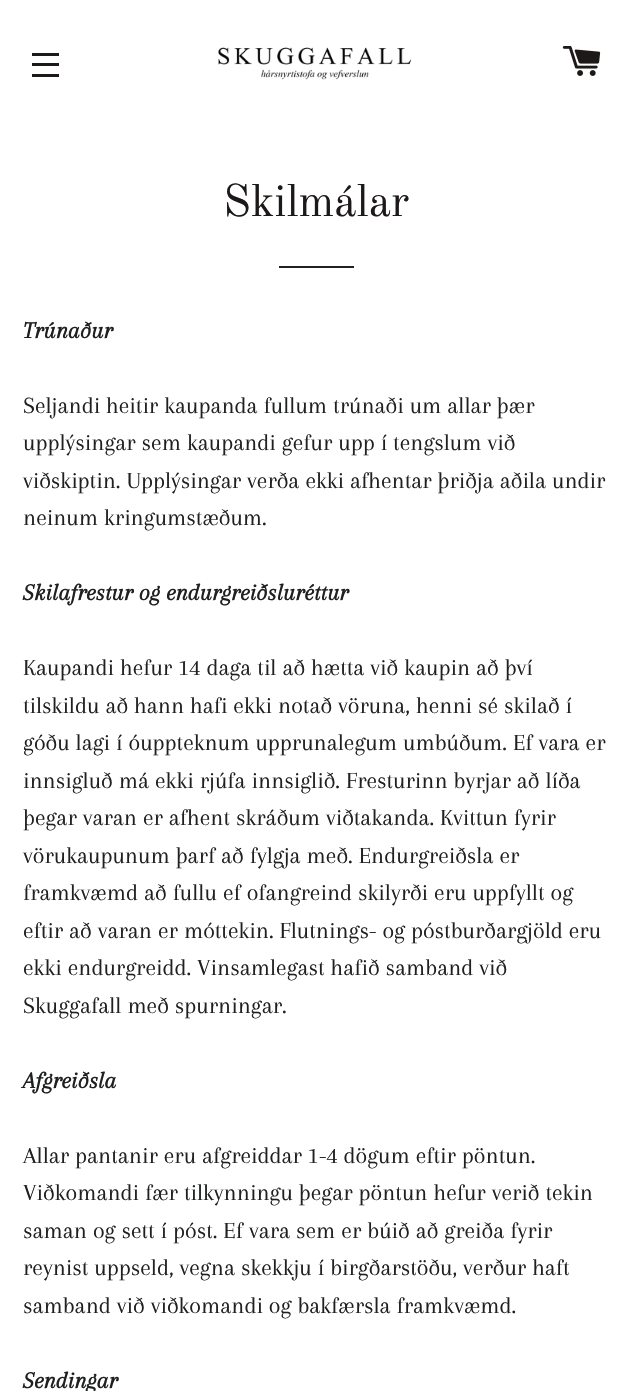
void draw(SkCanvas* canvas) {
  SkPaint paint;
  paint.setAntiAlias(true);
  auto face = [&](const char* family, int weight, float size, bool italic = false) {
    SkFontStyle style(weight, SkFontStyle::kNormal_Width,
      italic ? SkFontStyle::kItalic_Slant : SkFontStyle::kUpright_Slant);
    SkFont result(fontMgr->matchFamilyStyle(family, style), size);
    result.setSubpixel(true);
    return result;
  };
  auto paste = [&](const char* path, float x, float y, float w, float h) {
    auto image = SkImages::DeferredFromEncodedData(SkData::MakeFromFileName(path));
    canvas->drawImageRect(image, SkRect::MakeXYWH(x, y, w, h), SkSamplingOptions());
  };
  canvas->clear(0xffffffff);
  {
    const struct { float x, y, w, h; SkColor color; } items[] = {
      {32, 53, 27, 3, 0xff1e1919},
      {32, 63, 27, 3, 0xff1e1919},
      {32, 74, 27, 3, 0xff1e1919},
    };
    for (auto [x, y, w, h, color] : items) {
      paint.setColor(color);
      canvas->drawRect(SkRect::MakeXYWH(x, y, w, h), paint);
    }
  }
  paste("img/1.png", 218, 47, 194, 33);
  paste("img/2.png", 562, 46, 39, 30);
  paint.setColor(0xff1f2021);
  canvas->drawRect(SkRect::MakeXYWH(279, 266, 75, 2), paint);
  auto f0 = face("Old Standard TT", 400, 45);
  paint.setColor(0xff1e1919);
  canvas->drawString("Skilmálar", 223, 216, f0, paint);
  auto f1 = face("Arapey", 700, 24, true);
  paint.setColor(0xff1f2021);
  canvas->drawString("Trúnaður", 23, 338, f1, paint);
  auto f2 = face("Arapey", 400, 24);
  {
    const struct { const char* s; float x, y; } items[] = {
      {"Seljandi heitir kaupanda fullum trúnaði um allar þær", 23, 413},
      {"upplýsingar sem kaupandi gefur upp í tengslum við", 23, 450},
      {"viðskiptin. Upplýsingar verða ekki afhentar þriðja aðila undir", 23, 488},
      {"neinum kringumstæðum.", 23, 525},
    };
    for (auto [s, x, y] : items) {
      canvas->drawString(s, x, y, f2, paint);
    }
  }
  canvas->drawString("Skilafrestur og endurgreiðsluréttur", 23, 600, f1, paint);
  {
    const struct { const char* s; float x, y; } items[] = {
      {"Kaupandi hefur 14 daga til að hætta við kaupin að því", 23, 675},
      {"tilskildu að hann hafi ekki notað vöruna, henni sé skilað í", 23, 713},
      {"góðu lagi í óuppteknum upprunalegum umbúðum. Ef vara er", 23, 750},
      {"innsigluð má ekki rjúfa innsiglið. Fresturinn byrjar að líða", 23, 788},
      {"þegar varan er afhent skráðum viðtakanda. Kvittun fyrir", 23, 825},
      {"vörukaupunum þarf að fylgja með. Endurgreiðsla er", 23, 863},
      {"framkvæmd að fullu ef ofangreind skilyrði eru uppfyllt og", 23, 900},
      {"eftir að varan er móttekin. Flutnings- og póstburðargjöld eru", 23, 938},
      {"ekki endurgreidd. Vinsamlegast hafið samband við", 23, 975},
      {"Skuggafall með spurningar.", 23, 1013},
    };
    for (auto [s, x, y] : items) {
      canvas->drawString(s, x, y, f2, paint);
    }
  }
  canvas->drawString("Afgreiðsla", 23, 1088, f1, paint);
  {
    const struct { const char* s; float x, y; } items[] = {
      {"Allar pantanir eru afgreiddar 1-4 dögum eftir pöntun.", 23, 1163},
      {"Viðkomandi fær tilkynningu þegar pöntun hefur verið tekin", 23, 1200},
      {"saman og sett í póst. Ef vara sem er búið að greiða fyrir", 23, 1238},
      {"reynist uppseld, vegna skekkju í birgðarstöðu, verður haft", 23, 1275},
      {"samband við viðkomandi og bakfærsla framkvæmd.", 23, 1313},
    };
    for (auto [s, x, y] : items) {
      canvas->drawString(s, x, y, f2, paint);
    }
  }
  canvas->drawString("Sendingar", 23, 1388, f1, paint);
}
